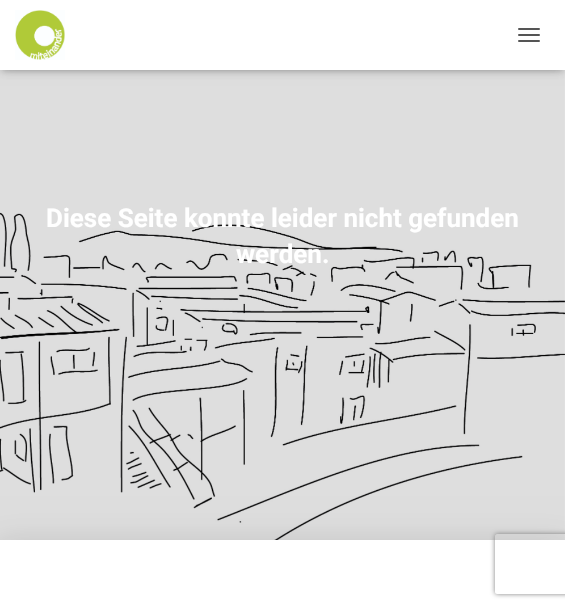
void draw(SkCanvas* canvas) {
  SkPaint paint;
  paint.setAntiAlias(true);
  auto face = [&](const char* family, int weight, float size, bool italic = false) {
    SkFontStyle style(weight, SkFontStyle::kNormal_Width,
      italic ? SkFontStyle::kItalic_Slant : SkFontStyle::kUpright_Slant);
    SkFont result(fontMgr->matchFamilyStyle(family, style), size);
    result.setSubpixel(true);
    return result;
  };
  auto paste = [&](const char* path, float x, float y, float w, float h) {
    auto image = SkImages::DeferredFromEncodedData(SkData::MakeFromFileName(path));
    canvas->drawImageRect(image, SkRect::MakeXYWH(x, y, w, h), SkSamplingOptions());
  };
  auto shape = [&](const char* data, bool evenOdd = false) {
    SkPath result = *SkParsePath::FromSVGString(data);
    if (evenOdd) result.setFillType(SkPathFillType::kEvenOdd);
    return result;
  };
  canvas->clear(0xffffffff);
  paste("img/2.png", 0, 70, 565, 470);
  paint.setColor(0x1a000000);
  paint.setMaskFilter(SkMaskFilter::MakeBlur(kNormal_SkBlurStyle, 2.5f));
  canvas->drawRect(SkRect::MakeXYWH(2, 6, 561, 66), paint);
  paint.setMaskFilter(nullptr);
  paint.setColor(0x1f000000);
  paint.setMaskFilter(SkMaskFilter::MakeBlur(kNormal_SkBlurStyle, 5));
  canvas->drawRect(SkRect::MakeXYWH(0, 1, 565, 70), paint);
  paint.setMaskFilter(nullptr);
  paint.setColor(0x6b000000);
  paint.setMaskFilter(SkMaskFilter::MakeBlur(kNormal_SkBlurStyle, 5));
  canvas->drawRect(SkRect::MakeXYWH(6, 7, 553, 58), paint);
  paint.setMaskFilter(nullptr);
  paint.setColor(0xffffffff);
  canvas->drawRect(SkRect::MakeXYWH(0, 0, 565, 70), paint);
  paste("img/1.png", 15, 10, 50, 50);
  paint.setColor(0xff555555);
  canvas->drawRoundRect(SkRect::MakeXYWH(518, 28, 22, 2), 1, 1, paint);
  canvas->drawRoundRect(SkRect::MakeXYWH(518, 34, 22, 2), 1, 1, paint);
  canvas->drawRoundRect(SkRect::MakeXYWH(518, 40, 22, 2), 1, 1, paint);
  paint.setColor(0x1f000000);
  paint.setMaskFilter(SkMaskFilter::MakeBlur(kNormal_SkBlurStyle, 15));
  canvas->drawRect(SkRect::MakeXYWH(-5, 541, 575, 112), paint);
  paint.setMaskFilter(nullptr);
  paint.setColor(0xffffffff);
  canvas->drawRect(SkRect::MakeXYWH(0, 540, 565, 68), paint);
  canvas->save();
  canvas->clipPath(shape("M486 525H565V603H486ZM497 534H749C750 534 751 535 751 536V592C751 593 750 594 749 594H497C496 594 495 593 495 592V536C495 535 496 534 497 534Z", true), true);
  paint.setColor(0xff808080);
  paint.setMaskFilter(SkMaskFilter::MakeBlur(kNormal_SkBlurStyle, 2.5f));
  canvas->drawRoundRect(SkRect::MakeXYWH(495, 534, 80, 60), 2, 2, paint);
  paint.setMaskFilter(nullptr);
  canvas->restore();
  auto f0 = face("Roboto", 700, 26);
  paint.setColor(0xffffffff);
  canvas->drawString("Diese Seite konnte leider nicht gefunden", 46, 227, f0, paint);
  canvas->drawString("werden.", 236, 263, f0, paint);
}
